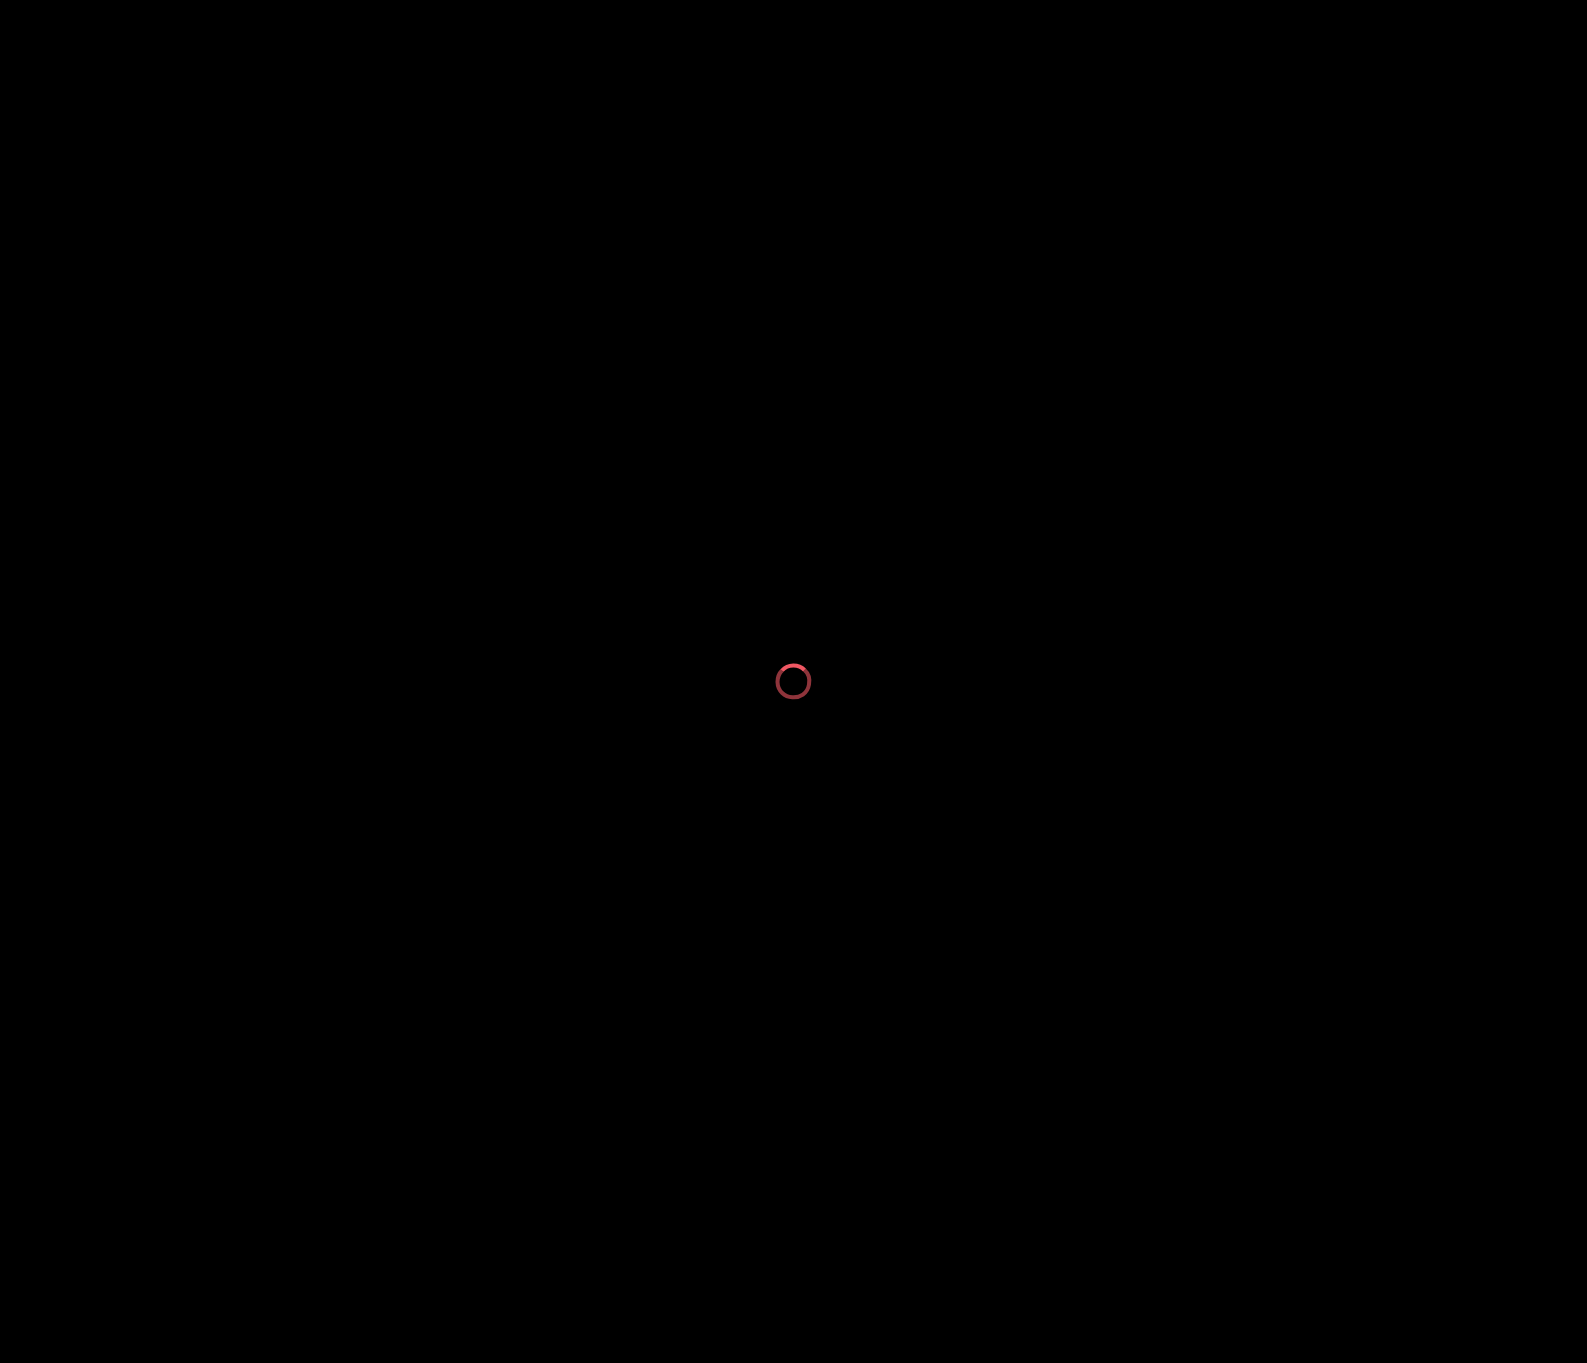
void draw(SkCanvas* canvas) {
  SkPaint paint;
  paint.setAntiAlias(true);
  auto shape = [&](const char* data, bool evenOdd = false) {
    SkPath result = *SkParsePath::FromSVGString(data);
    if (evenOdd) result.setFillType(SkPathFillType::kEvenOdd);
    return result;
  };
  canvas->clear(0xff000000);
  paint.setStroke(true);
  paint.setStrokeWidth(4);
  paint.setColor(0xffef5763);
  canvas->drawPath(shape("M782 670.5C788 664 798.5 664 804.5 670"), paint);
  paint.setColor(0x99ef5763);
  canvas->drawPath(shape("M804.5 670C808.5 673.5 810 679 809 684.5C806 703 778 701 777.5 682C777.5 677.5 779 673.5 782 670.5"), paint);
}
